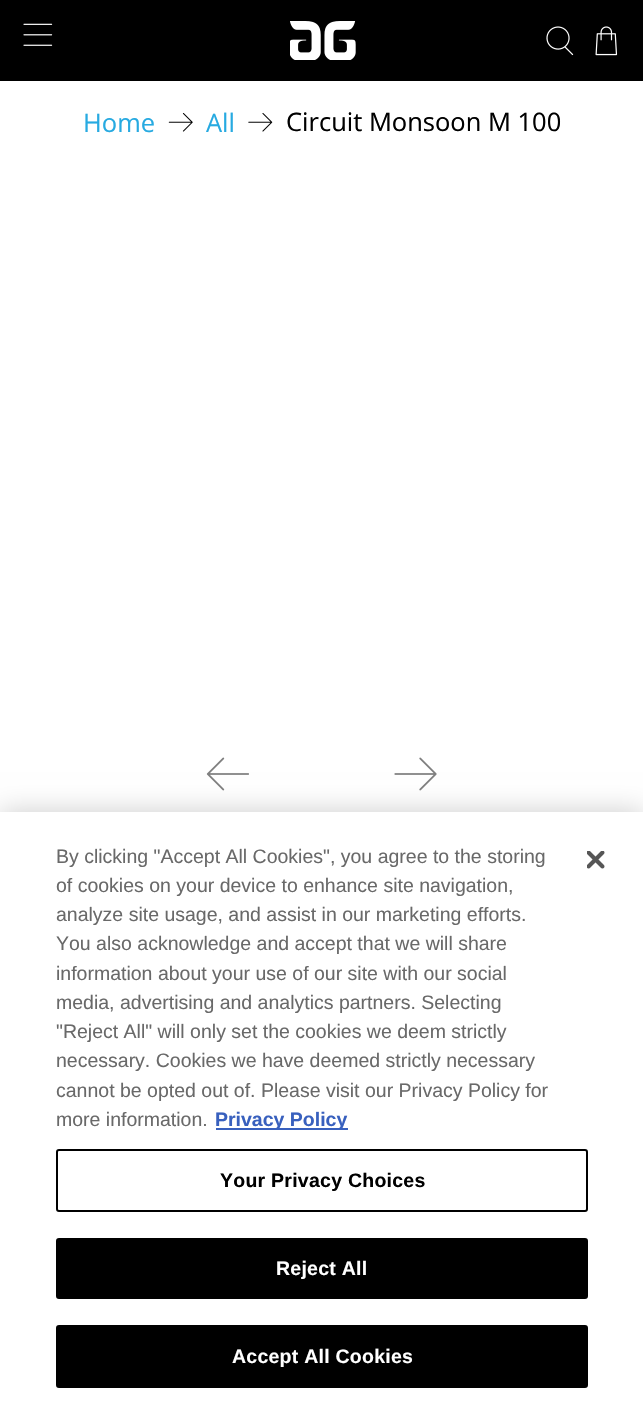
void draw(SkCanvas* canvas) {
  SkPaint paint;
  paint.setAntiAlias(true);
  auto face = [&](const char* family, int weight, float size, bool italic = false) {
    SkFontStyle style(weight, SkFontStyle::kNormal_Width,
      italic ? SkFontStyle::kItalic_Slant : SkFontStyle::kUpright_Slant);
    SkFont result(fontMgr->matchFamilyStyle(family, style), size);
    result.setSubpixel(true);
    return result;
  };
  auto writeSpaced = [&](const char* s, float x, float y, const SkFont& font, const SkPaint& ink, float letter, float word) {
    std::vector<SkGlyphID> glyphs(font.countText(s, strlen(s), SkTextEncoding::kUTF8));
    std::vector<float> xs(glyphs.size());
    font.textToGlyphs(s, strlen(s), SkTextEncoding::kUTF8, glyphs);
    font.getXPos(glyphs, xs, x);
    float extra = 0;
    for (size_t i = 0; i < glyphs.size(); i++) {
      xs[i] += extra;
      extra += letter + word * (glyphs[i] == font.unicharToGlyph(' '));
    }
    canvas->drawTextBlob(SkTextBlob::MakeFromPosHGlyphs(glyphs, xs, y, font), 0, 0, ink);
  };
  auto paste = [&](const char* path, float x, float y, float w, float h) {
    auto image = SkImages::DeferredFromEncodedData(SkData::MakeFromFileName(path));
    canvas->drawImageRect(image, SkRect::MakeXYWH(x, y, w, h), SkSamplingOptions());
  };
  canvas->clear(0xffffffff);
  paint.setColor(0xff000000);
  canvas->drawRect(SkRect::MakeXYWH(0, 0, 643, 81), paint);
  paste("img/1.png", 23, 23, 30, 23);
  paste("img/2.png", 290, 21, 66, 39);
  paste("img/3.png", 546, 26, 28, 30);
  paste("img/4.png", 595, 26, 23, 30);
  paste("img/5.png", 168, 113, 25, 19);
  paste("img/6.png", 248, 113, 25, 19);
  paste("img/7.png", 206, 757, 43, 34);
  paste("img/8.png", 394, 757, 43, 34);
  paint.setColor(0x33000000);
  paint.setMaskFilter(SkMaskFilter::MakeBlur(kNormal_SkBlurStyle, 13.5f));
  canvas->drawRect(SkRect::MakeXYWH(0, 812, 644, 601), paint);
  paint.setMaskFilter(nullptr);
  paint.setColor(0xffffffff);
  canvas->drawRect(SkRect::MakeXYWH(0, 812, 643, 600), paint);
  paint.setColor(0xff3860be);
  canvas->drawRect(SkRect::MakeXYWH(216, 1128, 132, 2), paint);
  paint.setStroke(true);
  paint.setStrokeWidth(2);
  paint.setColor(0xff000000);
  canvas->drawRoundRect(SkRect::MakeXYWH(57, 1150, 530, 61), 2, 2, paint);
  paint.setStroke(false);
  canvas->drawRoundRect(SkRect::MakeXYWH(57, 1239, 530, 59), 2, 2, paint);
  paint.setStroke(true);
  canvas->drawRoundRect(SkRect::MakeXYWH(57, 1239, 530, 59), 2, 2, paint);
  paint.setStroke(false);
  canvas->drawRoundRect(SkRect::MakeXYWH(57, 1326, 530, 61), 2, 2, paint);
  paint.setStroke(true);
  canvas->drawRoundRect(SkRect::MakeXYWH(57, 1326, 530, 61), 2, 2, paint);
  paste("img/9.png", 587, 851, 18, 18);
  auto f0 = face("Open Sans", 400, 25.5f);
  paint.setStroke(false);
  paint.setColor(0xff27aae1);
  canvas->drawString("Home", 83, 132, f0, paint);
  canvas->drawString("All", 206, 132, f0, paint);
  paint.setColor(0xff000000);
  canvas->drawString("Circuit Monsoon M 100", 286, 131, f0, paint);
  auto f1 = face("Liberation Sans", 400, 19.5f);
  paint.setColor(0xff696969);
  {
    const struct { const char* s; float x, y; } items[] = {
      {"By clicking \"Accept All Cookies\", you agree to the storing", 56, 863},
      {"of cookies on your device to enhance site navigation,", 56, 892},
      {"analyze site usage, and assist in our marketing efforts.", 56, 921},
      {"You also acknowledge and accept that we will share", 56, 950},
      {"information about your use of our site with our social", 56, 980},
      {"media, advertising and analytics partners. Selecting", 56, 1009},
      {"\"Reject All\" will only set the cookies we deem strictly", 56, 1038},
      {"necessary. Cookies we have deemed strictly necessary", 56, 1067},
      {"cannot be opted out of. Please visit our Privacy Policy for", 56, 1097},
      {"more information.", 56, 1126},
    };
    for (auto [s, x, y] : items) {
      canvas->drawString(s, x, y, f1, paint);
    }
  }
  auto f2 = face("Liberation Sans", 700, 19.5f);
  paint.setColor(0xff3860be);
  canvas->drawString("Privacy Policy", 215, 1126, f2, paint);
  paint.setColor(0xff000000);
  writeSpaced("Your Privacy Choices", 220, 1187, f2, paint, 0.25f, 0);
  paint.setColor(0xffffffff);
  writeSpaced("Reject All", 276, 1275, f2, paint, 0.25f, 0);
  writeSpaced("Accept All Cookies", 232, 1363, f2, paint, 0.25f, 0);
}
